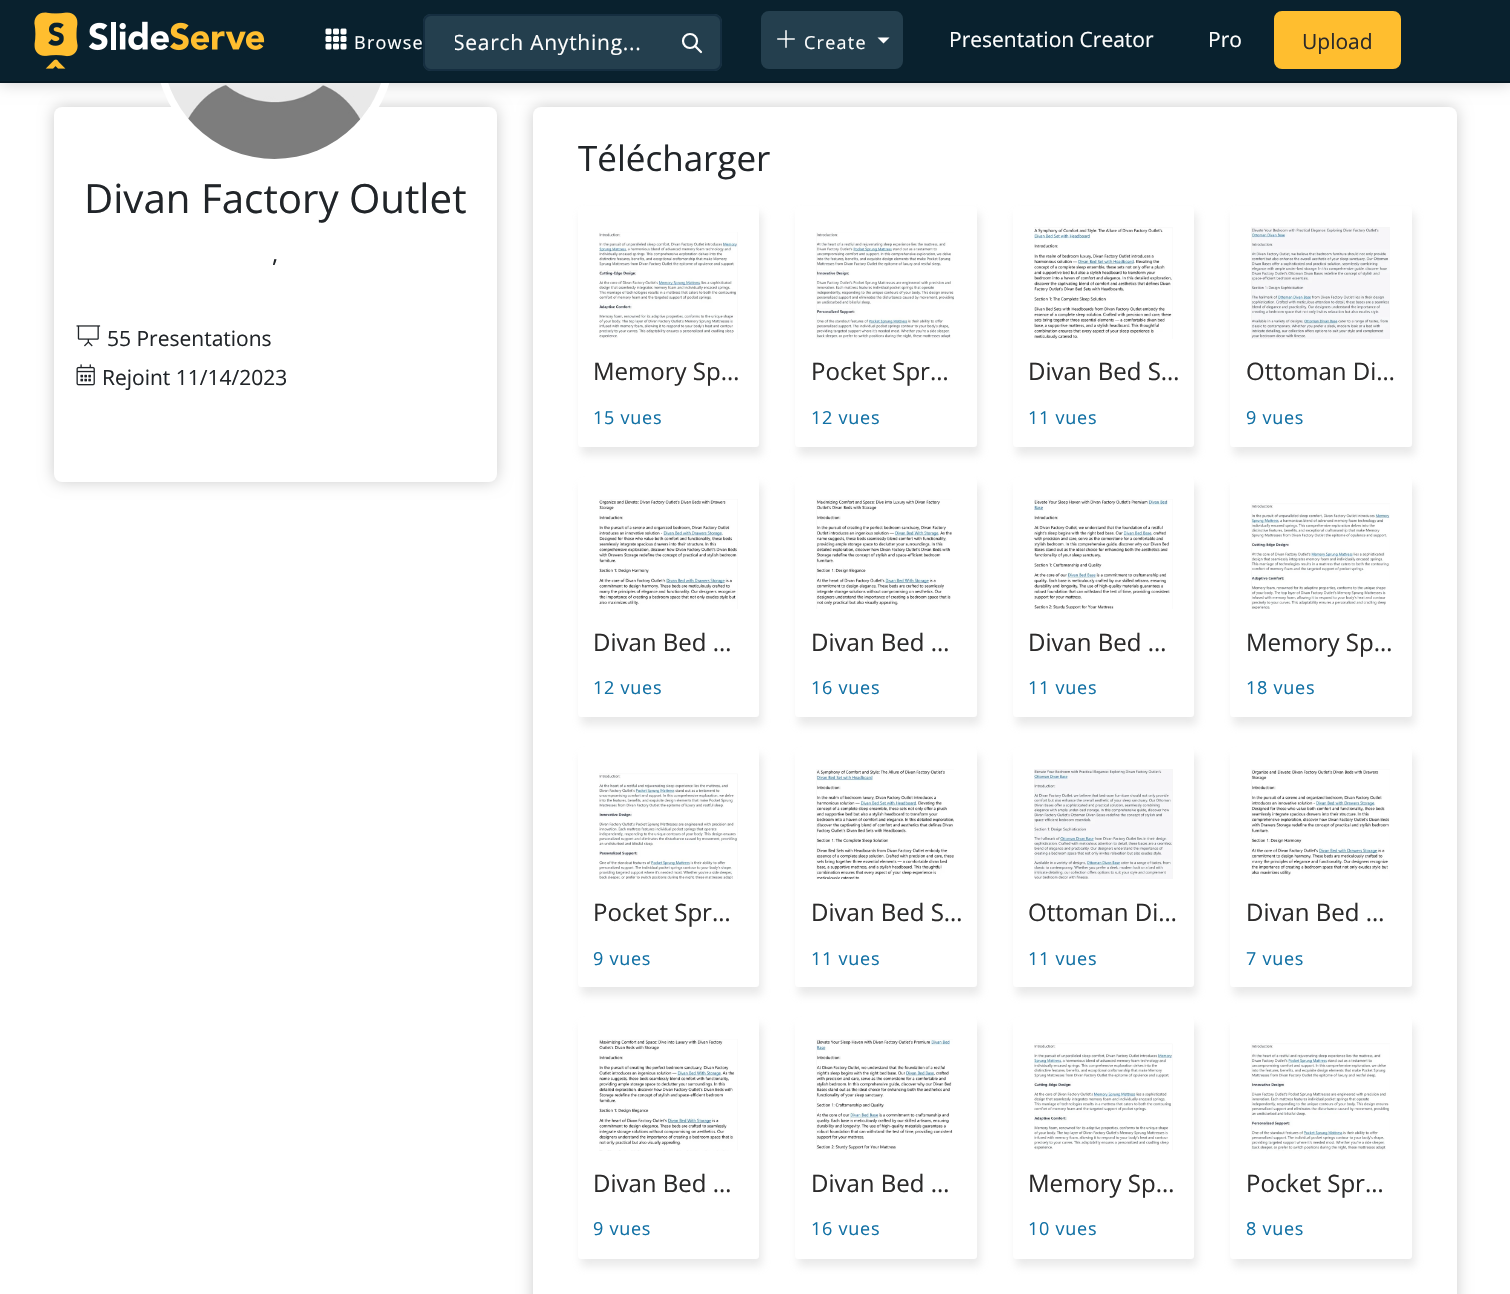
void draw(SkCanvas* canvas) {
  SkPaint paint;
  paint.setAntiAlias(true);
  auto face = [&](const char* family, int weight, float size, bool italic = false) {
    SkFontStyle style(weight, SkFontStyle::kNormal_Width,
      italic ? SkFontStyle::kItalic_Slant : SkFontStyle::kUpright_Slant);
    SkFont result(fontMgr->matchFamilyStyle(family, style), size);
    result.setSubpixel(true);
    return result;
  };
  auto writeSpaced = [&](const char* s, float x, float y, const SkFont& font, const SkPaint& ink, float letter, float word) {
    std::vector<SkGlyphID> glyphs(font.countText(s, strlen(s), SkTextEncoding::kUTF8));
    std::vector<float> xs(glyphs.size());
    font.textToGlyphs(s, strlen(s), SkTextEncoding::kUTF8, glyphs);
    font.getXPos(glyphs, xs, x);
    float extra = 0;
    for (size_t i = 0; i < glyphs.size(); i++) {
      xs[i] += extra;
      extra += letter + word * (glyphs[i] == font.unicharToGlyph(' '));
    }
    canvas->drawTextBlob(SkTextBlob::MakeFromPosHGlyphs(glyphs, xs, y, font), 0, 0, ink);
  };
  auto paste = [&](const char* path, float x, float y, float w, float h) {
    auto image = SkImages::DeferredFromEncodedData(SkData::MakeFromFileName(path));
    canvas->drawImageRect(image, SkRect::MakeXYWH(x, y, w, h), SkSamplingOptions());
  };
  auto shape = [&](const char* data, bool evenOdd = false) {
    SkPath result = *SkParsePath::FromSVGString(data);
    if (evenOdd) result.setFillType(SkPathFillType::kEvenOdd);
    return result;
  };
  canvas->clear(0xffffffff);
  paint.setColor(0x33000000);
  paint.setMaskFilter(SkMaskFilter::MakeBlur(kNormal_SkBlurStyle, 7.5f));
  canvas->drawRect(SkRect::MakeXYWH(0, 27, 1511, 56), paint);
  paint.setMaskFilter(nullptr);
  paint.setMaskFilter(SkMaskFilter::MakeBlur(kNormal_SkBlurStyle, 7.5f));
  canvas->drawRoundRect(SkRect::MakeXYWH(54, 107, 443, 375), 8, 8, paint);
  paint.setMaskFilter(nullptr);
  paint.setColor(0xffffffff);
  canvas->drawRoundRect(SkRect::MakeXYWH(54, 107, 443, 375), 8, 8, paint);
  paint.setStroke(true);
  paint.setStrokeWidth(8);
  canvas->drawCircle(275, 47, 116, paint);
  paste("img/4.png", 168, 83, 213, 76);
  paint.setStroke(false);
  paint.setColor(0x33000000);
  paint.setMaskFilter(SkMaskFilter::MakeBlur(kNormal_SkBlurStyle, 7.5f));
  canvas->drawRoundRect(SkRect::MakeXYWH(533, 107, 924, 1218), 8, 8, paint);
  paint.setMaskFilter(nullptr);
  paint.setColor(0x12ffffff);
  canvas->drawPath(shape("M0 82V86H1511V3H1510V82Z"), paint);
  paint.setColor(0xff09212e);
  canvas->drawRect(SkRect::MakeXYWH(0, 0, 1510, 81), paint);
  paint.setColor(0xff061924);
  canvas->drawRect(SkRect::MakeXYWH(0, 81, 1510, 2), paint);
  paste("img/1.png", 34, 12, 231, 57);
  paste("img/2.png", 325, 28, 22, 22);
  paint.setColor(0xff243f4e);
  canvas->drawRoundRect(SkRect::MakeXYWH(762, 12, 140, 56), 7, 7, paint);
  paint.setStroke(true);
  paint.setStrokeWidth(2);
  canvas->drawRoundRect(SkRect::MakeXYWH(762, 12, 140, 56), 7, 7, paint);
  paste("img/3.png", 777, 30, 18, 18);
  paint.setStroke(false);
  paint.setColor(0xffffffff);
  canvas->drawPath(shape("M877.5 37.5H889.5L883.5 43.5Z"), paint);
  paint.setColor(0xffffbe2f);
  canvas->drawRoundRect(SkRect::MakeXYWH(1275, 12, 125, 56), 7, 7, paint);
  paint.setStroke(true);
  canvas->drawRoundRect(SkRect::MakeXYWH(1275, 12, 125, 56), 7, 7, paint);
  paint.setStroke(false);
  paint.setColor(0xff243f4e);
  canvas->drawRoundRect(SkRect::MakeXYWH(423, 14, 299, 57), 8, 8, paint);
  paint.setStroke(true);
  paint.setStrokeWidth(2.2f);
  paint.setColor(0xffffffff);
  canvas->drawCircle(690, 41, 7, paint);
  paint.setStrokeCap(SkPaint::kRound_Cap);
  paint.setStrokeJoin(SkPaint::kRound_Join);
  canvas->drawPath(shape("M701 52L695 46"), paint);
  paint.setStrokeWidth(2);
  paint.setStrokeCap(SkPaint::kButt_Cap);
  paint.setStrokeJoin(SkPaint::kMiter_Join);
  paint.setColor(0xff152e40);
  canvas->drawRoundRect(SkRect::MakeXYWH(424, 15, 297, 55), 7, 7, paint);
  paste("img/5.png", 76, 325, 25, 22);
  paste("img/6.png", 76, 364, 19, 22);
  paint.setStroke(false);
  paint.setColor(0xffffffff);
  canvas->drawRoundRect(SkRect::MakeXYWH(533, 107, 924, 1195), 8, 8, paint);
  paint.setColor(0x66c7c7c7);
  paint.setMaskFilter(SkMaskFilter::MakeBlur(kNormal_SkBlurStyle, 4));
  canvas->drawRoundRect(SkRect::MakeXYWH(581, 213, 181, 242), 3, 3, paint);
  paint.setMaskFilter(nullptr);
  paint.setColor(0xffffffff);
  canvas->drawRoundRect(SkRect::MakeXYWH(578, 206, 181, 241), 3, 3, paint);
  paste("img/7.png", 599, 232, 139, 107);
  paint.setColor(0x66c7c7c7);
  paint.setMaskFilter(SkMaskFilter::MakeBlur(kNormal_SkBlurStyle, 4));
  canvas->drawRoundRect(SkRect::MakeXYWH(798, 213, 182, 242), 3, 3, paint);
  paint.setMaskFilter(nullptr);
  paint.setColor(0xffffffff);
  canvas->drawRoundRect(SkRect::MakeXYWH(795, 206, 182, 241), 3, 3, paint);
  paste("img/8.png", 816, 232, 138, 107);
  paint.setColor(0x66c7c7c7);
  paint.setMaskFilter(SkMaskFilter::MakeBlur(kNormal_SkBlurStyle, 4));
  canvas->drawRoundRect(SkRect::MakeXYWH(1016, 213, 181, 242), 3, 3, paint);
  paint.setMaskFilter(nullptr);
  paint.setColor(0xffffffff);
  canvas->drawRoundRect(SkRect::MakeXYWH(1013, 206, 181, 241), 3, 3, paint);
  paste("img/9.png", 1034, 227, 139, 112);
  paint.setColor(0x66c7c7c7);
  paint.setMaskFilter(SkMaskFilter::MakeBlur(kNormal_SkBlurStyle, 4));
  canvas->drawRoundRect(SkRect::MakeXYWH(1233, 213, 182, 242), 3, 3, paint);
  paint.setMaskFilter(nullptr);
  paint.setColor(0xffffffff);
  canvas->drawRoundRect(SkRect::MakeXYWH(1230, 206, 182, 241), 3, 3, paint);
  paste("img/10.png", 1251, 227, 139, 112);
  paint.setColor(0x66c7c7c7);
  paint.setMaskFilter(SkMaskFilter::MakeBlur(kNormal_SkBlurStyle, 4));
  canvas->drawRoundRect(SkRect::MakeXYWH(581, 485, 181, 240), 3, 3, paint);
  paint.setMaskFilter(nullptr);
  paint.setColor(0xffffffff);
  canvas->drawRoundRect(SkRect::MakeXYWH(578, 477, 181, 240), 3, 3, paint);
  paste("img/11.png", 599, 499, 139, 110);
  paint.setColor(0x66c7c7c7);
  paint.setMaskFilter(SkMaskFilter::MakeBlur(kNormal_SkBlurStyle, 4));
  canvas->drawRoundRect(SkRect::MakeXYWH(798, 485, 182, 240), 3, 3, paint);
  paint.setMaskFilter(nullptr);
  paint.setColor(0xffffffff);
  canvas->drawRoundRect(SkRect::MakeXYWH(795, 477, 182, 240), 3, 3, paint);
  paste("img/12.png", 816, 499, 136, 110);
  paint.setColor(0x66c7c7c7);
  paint.setMaskFilter(SkMaskFilter::MakeBlur(kNormal_SkBlurStyle, 4));
  canvas->drawRoundRect(SkRect::MakeXYWH(1016, 485, 181, 240), 3, 3, paint);
  paint.setMaskFilter(nullptr);
  paint.setColor(0xffffffff);
  canvas->drawRoundRect(SkRect::MakeXYWH(1013, 477, 181, 240), 3, 3, paint);
  paste("img/13.png", 1034, 499, 139, 110);
  paint.setColor(0x66c7c7c7);
  paint.setMaskFilter(SkMaskFilter::MakeBlur(kNormal_SkBlurStyle, 4));
  canvas->drawRoundRect(SkRect::MakeXYWH(1233, 485, 182, 240), 3, 3, paint);
  paint.setMaskFilter(nullptr);
  paint.setColor(0xffffffff);
  canvas->drawRoundRect(SkRect::MakeXYWH(1230, 477, 182, 240), 3, 3, paint);
  paste("img/14.png", 1251, 503, 139, 106);
  paint.setColor(0x66c7c7c7);
  paint.setMaskFilter(SkMaskFilter::MakeBlur(kNormal_SkBlurStyle, 4));
  canvas->drawRoundRect(SkRect::MakeXYWH(581, 755, 181, 240), 3, 3, paint);
  paint.setMaskFilter(nullptr);
  paint.setColor(0xffffffff);
  canvas->drawRoundRect(SkRect::MakeXYWH(578, 747, 181, 240), 3, 3, paint);
  paste("img/15.png", 599, 773, 139, 106);
  paint.setColor(0x66c7c7c7);
  paint.setMaskFilter(SkMaskFilter::MakeBlur(kNormal_SkBlurStyle, 4));
  canvas->drawRoundRect(SkRect::MakeXYWH(798, 755, 182, 240), 3, 3, paint);
  paint.setMaskFilter(nullptr);
  paint.setColor(0xffffffff);
  canvas->drawRoundRect(SkRect::MakeXYWH(795, 747, 182, 240), 3, 3, paint);
  paste("img/16.png", 816, 769, 138, 110);
  paint.setColor(0x66c7c7c7);
  paint.setMaskFilter(SkMaskFilter::MakeBlur(kNormal_SkBlurStyle, 4));
  canvas->drawRoundRect(SkRect::MakeXYWH(1016, 755, 181, 240), 3, 3, paint);
  paint.setMaskFilter(nullptr);
  paint.setColor(0xffffffff);
  canvas->drawRoundRect(SkRect::MakeXYWH(1013, 747, 181, 240), 3, 3, paint);
  paste("img/17.png", 1034, 769, 139, 110);
  paint.setColor(0x66c7c7c7);
  paint.setMaskFilter(SkMaskFilter::MakeBlur(kNormal_SkBlurStyle, 4));
  canvas->drawRoundRect(SkRect::MakeXYWH(1233, 755, 182, 240), 3, 3, paint);
  paint.setMaskFilter(nullptr);
  paint.setColor(0xffffffff);
  canvas->drawRoundRect(SkRect::MakeXYWH(1230, 747, 182, 240), 3, 3, paint);
  paste("img/18.png", 1251, 769, 139, 110);
  paint.setColor(0x66c7c7c7);
  paint.setMaskFilter(SkMaskFilter::MakeBlur(kNormal_SkBlurStyle, 4));
  canvas->drawRoundRect(SkRect::MakeXYWH(581, 1025, 181, 241), 3, 3, paint);
  paint.setMaskFilter(nullptr);
  paint.setColor(0xffffffff);
  canvas->drawRoundRect(SkRect::MakeXYWH(578, 1017, 181, 242), 3, 3, paint);
  paste("img/19.png", 599, 1039, 139, 112);
  paint.setColor(0x66c7c7c7);
  paint.setMaskFilter(SkMaskFilter::MakeBlur(kNormal_SkBlurStyle, 4));
  canvas->drawRoundRect(SkRect::MakeXYWH(798, 1025, 182, 241), 3, 3, paint);
  paint.setMaskFilter(nullptr);
  paint.setColor(0xffffffff);
  canvas->drawRoundRect(SkRect::MakeXYWH(795, 1017, 182, 242), 3, 3, paint);
  paste("img/20.png", 816, 1039, 137, 111);
  paint.setColor(0x66c7c7c7);
  paint.setMaskFilter(SkMaskFilter::MakeBlur(kNormal_SkBlurStyle, 4));
  canvas->drawRoundRect(SkRect::MakeXYWH(1016, 1025, 181, 241), 3, 3, paint);
  paint.setMaskFilter(nullptr);
  paint.setColor(0xffffffff);
  canvas->drawRoundRect(SkRect::MakeXYWH(1013, 1017, 181, 242), 3, 3, paint);
  paste("img/21.png", 1034, 1043, 139, 107);
  paint.setColor(0x66c7c7c7);
  paint.setMaskFilter(SkMaskFilter::MakeBlur(kNormal_SkBlurStyle, 4));
  canvas->drawRoundRect(SkRect::MakeXYWH(1233, 1025, 182, 241), 3, 3, paint);
  paint.setMaskFilter(nullptr);
  paint.setColor(0xffffffff);
  canvas->drawRoundRect(SkRect::MakeXYWH(1230, 1017, 182, 242), 3, 3, paint);
  paste("img/22.png", 1251, 1043, 139, 108);
  auto f0 = face("Open Sans", 400, 18);
  writeSpaced("Browse", 354, 49, f0, paint, 1.25f, 0);
  writeSpaced("Create", 804, 49, f0, paint, 1.25f, 0);
  auto f1 = face("Open Sans", 400, 21);
  canvas->drawString("Presentation Creator", 949, 47, f1, paint);
  canvas->drawString("Pro", 1208, 47, f1, paint);
  paint.setColor(0xff2b2a2a);
  canvas->drawString("Upload", 1302, 49, f1, paint);
  canvas->save();
  canvas->clipRect(SkRect::MakeXYWH(455, 29, 235, 28));
  paint.setColor(0xffffffff);
  writeSpaced("Search Anything...", 453, 50, f1, paint, 0.75f, 0);
  canvas->restore();
  auto f2 = face("Open Sans", 400, 40.25f);
  paint.setColor(0xff212529);
  canvas->drawString("Divan Factory Outlet", 84, 213, f2, paint);
  auto f3 = face("Open Sans", 400, 24);
  canvas->drawString(",", 272, 262, f3, paint);
  canvas->drawString("55 Presentations", 107, 346, f1, paint);
  canvas->drawString("Rejoint 11/14/2023", 102, 385, f1, paint);
  auto f4 = face("Open Sans", 400, 35);
  canvas->drawString("Télécharger", 578, 171, f4, paint);
  paint.setColor(0xff2b2a2a);
  canvas->drawString("Memory Sp…", 593, 380, f3, paint);
  paint.setColor(0xff1271a5);
  writeSpaced("15 vues", 593, 424, f0, paint, 0.75f, 0);
  paint.setColor(0xff2b2a2a);
  canvas->drawString("Pocket Spr…", 811, 380, f3, paint);
  paint.setColor(0xff1271a5);
  writeSpaced("12 vues", 811, 424, f0, paint, 0.75f, 0);
  paint.setColor(0xff2b2a2a);
  canvas->drawString("Divan Bed S…", 1028, 380, f3, paint);
  paint.setColor(0xff1271a5);
  writeSpaced("11 vues", 1028, 424, f0, paint, 0.75f, 0);
  paint.setColor(0xff2b2a2a);
  canvas->drawString("Ottoman Di…", 1246, 380, f3, paint);
  paint.setColor(0xff1271a5);
  writeSpaced("9 vues", 1246, 424, f0, paint, 0.75f, 0);
  paint.setColor(0xff2b2a2a);
  canvas->drawString("Divan Bed …", 593, 651, f3, paint);
  paint.setColor(0xff1271a5);
  writeSpaced("12 vues", 593, 694, f0, paint, 0.75f, 0);
  paint.setColor(0xff2b2a2a);
  canvas->drawString("Divan Bed …", 811, 651, f3, paint);
  paint.setColor(0xff1271a5);
  writeSpaced("16 vues", 811, 694, f0, paint, 0.75f, 0);
  paint.setColor(0xff2b2a2a);
  canvas->drawString("Divan Bed …", 1028, 651, f3, paint);
  paint.setColor(0xff1271a5);
  writeSpaced("11 vues", 1028, 694, f0, paint, 0.75f, 0);
  paint.setColor(0xff2b2a2a);
  canvas->drawString("Memory Sp…", 1246, 651, f3, paint);
  paint.setColor(0xff1271a5);
  writeSpaced("18 vues", 1246, 694, f0, paint, 0.75f, 0);
  paint.setColor(0xff2b2a2a);
  canvas->drawString("Pocket Spr…", 593, 921, f3, paint);
  paint.setColor(0xff1271a5);
  writeSpaced("9 vues", 593, 965, f0, paint, 0.75f, 0);
  paint.setColor(0xff2b2a2a);
  canvas->drawString("Divan Bed S…", 811, 921, f3, paint);
  paint.setColor(0xff1271a5);
  writeSpaced("11 vues", 811, 965, f0, paint, 0.75f, 0);
  paint.setColor(0xff2b2a2a);
  canvas->drawString("Ottoman Di…", 1028, 921, f3, paint);
  paint.setColor(0xff1271a5);
  writeSpaced("11 vues", 1028, 965, f0, paint, 0.75f, 0);
  paint.setColor(0xff2b2a2a);
  canvas->drawString("Divan Bed …", 1246, 921, f3, paint);
  paint.setColor(0xff1271a5);
  writeSpaced("7 vues", 1246, 965, f0, paint, 0.75f, 0);
  paint.setColor(0xff2b2a2a);
  canvas->drawString("Divan Bed …", 593, 1192, f3, paint);
  paint.setColor(0xff1271a5);
  writeSpaced("9 vues", 593, 1235, f0, paint, 0.75f, 0);
  paint.setColor(0xff2b2a2a);
  canvas->drawString("Divan Bed …", 811, 1192, f3, paint);
  paint.setColor(0xff1271a5);
  writeSpaced("16 vues", 811, 1235, f0, paint, 0.75f, 0);
  paint.setColor(0xff2b2a2a);
  canvas->drawString("Memory Sp…", 1028, 1192, f3, paint);
  paint.setColor(0xff1271a5);
  writeSpaced("10 vues", 1028, 1235, f0, paint, 0.75f, 0);
  paint.setColor(0xff2b2a2a);
  canvas->drawString("Pocket Spr…", 1246, 1192, f3, paint);
  paint.setColor(0xff1271a5);
  writeSpaced("8 vues", 1246, 1235, f0, paint, 0.75f, 0);
}
